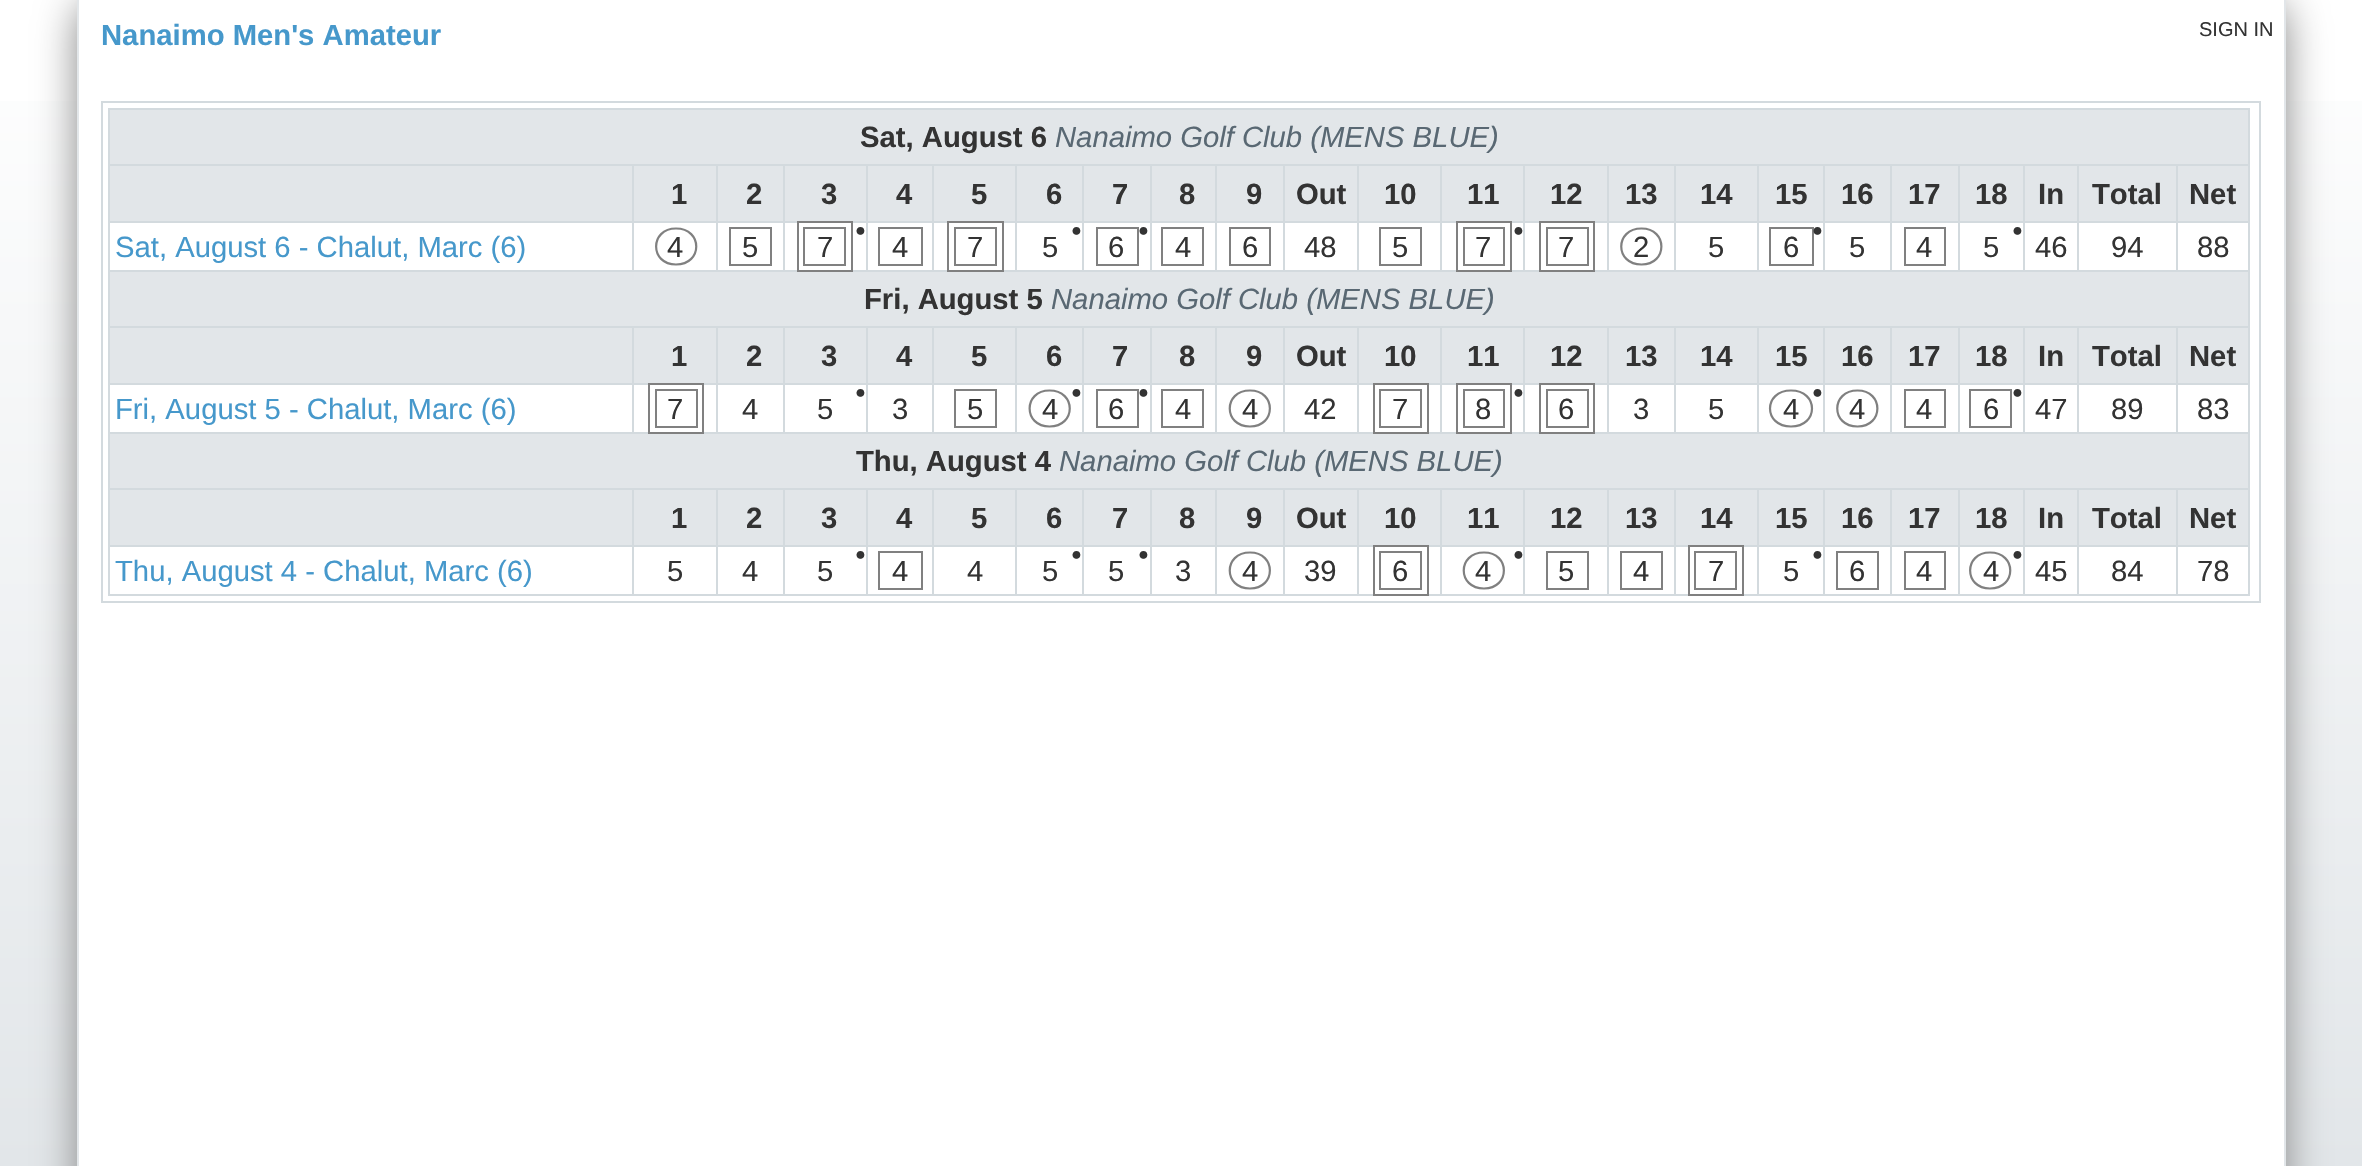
void draw(SkCanvas* canvas) {
  SkPaint paint;
  paint.setAntiAlias(true);
  auto face = [&](const char* family, int weight, float size, bool italic = false) {
    SkFontStyle style(weight, SkFontStyle::kNormal_Width,
      italic ? SkFontStyle::kItalic_Slant : SkFontStyle::kUpright_Slant);
    SkFont result(fontMgr->matchFamilyStyle(family, style), size);
    result.setSubpixel(true);
    return result;
  };
  auto shape = [&](const char* data, bool evenOdd = false) {
    SkPath result = *SkParsePath::FromSVGString(data);
    if (evenOdd) result.setFillType(SkPathFillType::kEvenOdd);
    return result;
  };
  canvas->clear(0xffffffff);
  {
    const SkColor colors[] = {0xffffffff, 0xffe2e6e9};
    const float stops[] = {0, 1};
    const SkPoint ends[] = {{1181, 0}, {1181, 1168}};
    paint.setShader(SkGradientShader::MakeLinear(ends, colors, stops, 2, SkTileMode::kClamp));
    paint.setAlpha(255);
  }
  canvas->drawRect(SkRect::MakeXYWH(0, 101, 2362, 1065), paint);
  paint.setShader(nullptr);
  paint.setColor(0xff888888);
  paint.setMaskFilter(SkMaskFilter::MakeBlur(kNormal_SkBlurStyle, 20));
  canvas->drawRoundRect(SkRect::MakeXYWH(77, 0, 2209, 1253), 27, 27, paint);
  paint.setMaskFilter(nullptr);
  {
    const struct { float x, y, w, h; SkColor color; } items[] = {
      {79, 0, 2205, 1166, 0xffffffff},
      {2284, 0, 2, 1166, 0xffe2e6e9},
      {77, 0, 2, 1166, 0xffe2e6e9},
      {101, 101, 2160, 2, 0xffd3dade},
      {2259, 101, 2, 502, 0xffd3dade},
      {101, 601, 2160, 2, 0xffd3dade},
      {101, 101, 2, 502, 0xffd3dade},
      {110, 110, 2138, 57, 0xffe2e6e9},
      {108, 108, 2142, 2, 0xffd3dade},
      {2176, 164, 74, 2, 0xffd3dade},
      {2176, 221, 74, 2, 0xffd3dade},
      {108, 270, 2142, 2, 0xffd3dade},
      {110, 272, 2138, 57, 0xffe2e6e9},
      {2176, 326, 74, 2, 0xffd3dade},
      {2176, 383, 74, 2, 0xffd3dade},
      {108, 432, 2142, 2, 0xffd3dade},
      {110, 434, 2138, 57, 0xffe2e6e9},
      {2176, 488, 74, 2, 0xffd3dade},
      {2176, 545, 74, 2, 0xffd3dade},
      {2248, 545, 2, 51, 0xffd3dade},
      {2248, 488, 2, 59, 0xffd3dade},
      {2248, 432, 2, 59, 0xffd3dade},
      {2248, 383, 2, 51, 0xffd3dade},
      {2248, 326, 2, 59, 0xffd3dade},
      {2248, 270, 2, 59, 0xffd3dade},
      {2248, 221, 2, 51, 0xffd3dade},
      {2248, 164, 2, 59, 0xffd3dade},
      {2248, 108, 2, 59, 0xffd3dade},
      {2176, 221, 2, 51, 0xffd3dade},
      {2077, 221, 101, 2, 0xffd3dade},
      {2176, 164, 2, 59, 0xffd3dade},
      {2077, 164, 101, 2, 0xffd3dade},
      {2077, 221, 2, 51, 0xffd3dade},
      {2023, 221, 56, 2, 0xffd3dade},
      {2077, 164, 2, 59, 0xffd3dade},
      {2023, 164, 56, 2, 0xffd3dade},
      {2023, 221, 2, 51, 0xffd3dade},
      {1958, 221, 67, 2, 0xffd3dade},
      {2023, 164, 2, 59, 0xffd3dade},
      {1958, 164, 67, 2, 0xffd3dade},
      {1958, 221, 2, 51, 0xffd3dade},
      {1890, 221, 70, 2, 0xffd3dade},
      {1958, 164, 2, 59, 0xffd3dade},
      {1890, 164, 70, 2, 0xffd3dade},
      {1890, 221, 2, 51, 0xffd3dade},
      {1823, 221, 69, 2, 0xffd3dade},
      {1890, 164, 2, 59, 0xffd3dade},
      {1823, 164, 69, 2, 0xffd3dade},
      {1823, 221, 2, 51, 0xffd3dade},
      {1757, 221, 68, 2, 0xffd3dade},
      {1823, 164, 2, 59, 0xffd3dade},
      {1757, 164, 68, 2, 0xffd3dade},
      {1757, 221, 2, 51, 0xffd3dade},
      {1674, 221, 86, 2, 0xffd3dade},
      {1757, 164, 2, 59, 0xffd3dade},
      {1674, 164, 86, 2, 0xffd3dade},
      {1674, 221, 2, 51, 0xffd3dade},
      {1607, 221, 69, 2, 0xffd3dade},
      {1674, 164, 2, 59, 0xffd3dade},
      {1607, 164, 69, 2, 0xffd3dade},
      {1607, 221, 2, 51, 0xffd3dade},
      {1523, 221, 86, 2, 0xffd3dade},
      {1607, 164, 2, 59, 0xffd3dade},
      {1523, 164, 86, 2, 0xffd3dade},
      {1442, 167, 165, 54, 0xffe2e6e9},
      {1523, 221, 2, 51, 0xffd3dade},
      {1440, 221, 86, 2, 0xffd3dade},
      {1523, 164, 2, 59, 0xffd3dade},
      {1440, 164, 86, 2, 0xffd3dade},
      {1440, 221, 2, 51, 0xffd3dade},
      {1357, 221, 85, 2, 0xffd3dade},
      {1440, 164, 2, 59, 0xffd3dade},
      {1357, 164, 85, 2, 0xffd3dade},
      {1357, 221, 2, 51, 0xffd3dade},
      {1283, 221, 76, 2, 0xffd3dade},
      {1357, 164, 2, 59, 0xffd3dade},
      {1283, 164, 76, 2, 0xffd3dade},
      {1283, 221, 2, 51, 0xffd3dade},
      {1215, 221, 70, 2, 0xffd3dade},
      {1283, 164, 2, 59, 0xffd3dade},
      {1215, 164, 70, 2, 0xffd3dade},
      {1215, 221, 2, 51, 0xffd3dade},
      {1150, 221, 67, 2, 0xffd3dade},
      {1215, 164, 2, 59, 0xffd3dade},
      {1150, 164, 67, 2, 0xffd3dade},
      {1150, 221, 2, 51, 0xffd3dade},
      {1082, 221, 70, 2, 0xffd3dade},
      {1150, 164, 2, 59, 0xffd3dade},
      {1082, 164, 70, 2, 0xffd3dade},
      {1082, 221, 2, 51, 0xffd3dade},
      {1015, 221, 70, 2, 0xffd3dade},
      {1082, 164, 2, 59, 0xffd3dade},
      {1015, 164, 70, 2, 0xffd3dade},
      {1015, 221, 2, 51, 0xffd3dade},
      {932, 221, 85, 2, 0xffd3dade},
      {1015, 164, 2, 59, 0xffd3dade},
      {932, 164, 85, 2, 0xffd3dade},
      {932, 221, 2, 51, 0xffd3dade},
      {866, 221, 68, 2, 0xffd3dade},
      {932, 164, 2, 59, 0xffd3dade},
      {866, 164, 68, 2, 0xffd3dade},
      {866, 221, 2, 51, 0xffd3dade},
      {783, 221, 86, 2, 0xffd3dade},
      {866, 164, 2, 59, 0xffd3dade},
      {783, 164, 86, 2, 0xffd3dade},
      {783, 221, 2, 51, 0xffd3dade},
      {716, 221, 69, 2, 0xffd3dade},
      {783, 164, 2, 59, 0xffd3dade},
      {716, 164, 69, 2, 0xffd3dade},
      {716, 221, 2, 51, 0xffd3dade},
      {632, 221, 86, 2, 0xffd3dade},
      {716, 164, 2, 59, 0xffd3dade},
      {632, 164, 86, 2, 0xffd3dade},
      {110, 167, 606, 54, 0xffe2e6e9},
      {632, 221, 2, 51, 0xffd3dade},
      {108, 221, 527, 2, 0xffd3dade},
      {632, 164, 2, 59, 0xffd3dade},
      {108, 164, 527, 2, 0xffd3dade},
      {2176, 383, 2, 51, 0xffd3dade},
      {2077, 383, 101, 2, 0xffd3dade},
      {2176, 326, 2, 59, 0xffd3dade},
      {2077, 326, 101, 2, 0xffd3dade},
      {2077, 383, 2, 51, 0xffd3dade},
      {2023, 383, 56, 2, 0xffd3dade},
      {2077, 326, 2, 59, 0xffd3dade},
      {2023, 326, 56, 2, 0xffd3dade},
      {2023, 383, 2, 51, 0xffd3dade},
      {1958, 383, 67, 2, 0xffd3dade},
      {2023, 326, 2, 59, 0xffd3dade},
      {1958, 326, 67, 2, 0xffd3dade},
      {1958, 383, 2, 51, 0xffd3dade},
      {1890, 383, 70, 2, 0xffd3dade},
      {1958, 326, 2, 59, 0xffd3dade},
      {1890, 326, 70, 2, 0xffd3dade},
      {1890, 383, 2, 51, 0xffd3dade},
      {1823, 383, 69, 2, 0xffd3dade},
      {1890, 326, 2, 59, 0xffd3dade},
      {1823, 326, 69, 2, 0xffd3dade},
      {1823, 383, 2, 51, 0xffd3dade},
      {1757, 383, 68, 2, 0xffd3dade},
      {1823, 326, 2, 59, 0xffd3dade},
      {1757, 326, 68, 2, 0xffd3dade},
      {1757, 383, 2, 51, 0xffd3dade},
      {1674, 383, 86, 2, 0xffd3dade},
      {1757, 326, 2, 59, 0xffd3dade},
      {1674, 326, 86, 2, 0xffd3dade},
      {1674, 383, 2, 51, 0xffd3dade},
      {1607, 383, 69, 2, 0xffd3dade},
      {1674, 326, 2, 59, 0xffd3dade},
      {1607, 326, 69, 2, 0xffd3dade},
      {1607, 383, 2, 51, 0xffd3dade},
      {1523, 383, 86, 2, 0xffd3dade},
      {1607, 326, 2, 59, 0xffd3dade},
      {1523, 326, 86, 2, 0xffd3dade},
      {1442, 329, 165, 54, 0xffe2e6e9},
      {1523, 383, 2, 51, 0xffd3dade},
      {1440, 383, 86, 2, 0xffd3dade},
      {1523, 326, 2, 59, 0xffd3dade},
      {1440, 326, 86, 2, 0xffd3dade},
      {1440, 383, 2, 51, 0xffd3dade},
      {1357, 383, 85, 2, 0xffd3dade},
      {1440, 326, 2, 59, 0xffd3dade},
      {1357, 326, 85, 2, 0xffd3dade},
      {1357, 383, 2, 51, 0xffd3dade},
      {1283, 383, 76, 2, 0xffd3dade},
      {1357, 326, 2, 59, 0xffd3dade},
      {1283, 326, 76, 2, 0xffd3dade},
      {1283, 383, 2, 51, 0xffd3dade},
      {1215, 383, 70, 2, 0xffd3dade},
      {1283, 326, 2, 59, 0xffd3dade},
      {1215, 326, 70, 2, 0xffd3dade},
      {1215, 383, 2, 51, 0xffd3dade},
      {1150, 383, 67, 2, 0xffd3dade},
      {1215, 326, 2, 59, 0xffd3dade},
      {1150, 326, 67, 2, 0xffd3dade},
      {1150, 383, 2, 51, 0xffd3dade},
      {1082, 383, 70, 2, 0xffd3dade},
      {1150, 326, 2, 59, 0xffd3dade},
      {1082, 326, 70, 2, 0xffd3dade},
      {1082, 383, 2, 51, 0xffd3dade},
      {1015, 383, 70, 2, 0xffd3dade},
      {1082, 326, 2, 59, 0xffd3dade},
      {1015, 326, 70, 2, 0xffd3dade},
      {1015, 383, 2, 51, 0xffd3dade},
      {932, 383, 85, 2, 0xffd3dade},
      {1015, 326, 2, 59, 0xffd3dade},
      {932, 326, 85, 2, 0xffd3dade},
      {932, 383, 2, 51, 0xffd3dade},
      {866, 383, 68, 2, 0xffd3dade},
      {932, 326, 2, 59, 0xffd3dade},
      {866, 326, 68, 2, 0xffd3dade},
      {866, 383, 2, 51, 0xffd3dade},
      {783, 383, 86, 2, 0xffd3dade},
      {866, 326, 2, 59, 0xffd3dade},
      {783, 326, 86, 2, 0xffd3dade},
      {783, 383, 2, 51, 0xffd3dade},
      {716, 383, 69, 2, 0xffd3dade},
      {783, 326, 2, 59, 0xffd3dade},
      {716, 326, 69, 2, 0xffd3dade},
      {716, 383, 2, 51, 0xffd3dade},
      {632, 383, 86, 2, 0xffd3dade},
      {716, 326, 2, 59, 0xffd3dade},
      {632, 326, 86, 2, 0xffd3dade},
      {110, 329, 606, 54, 0xffe2e6e9},
      {632, 383, 2, 51, 0xffd3dade},
      {108, 383, 527, 2, 0xffd3dade},
      {632, 326, 2, 59, 0xffd3dade},
      {108, 326, 527, 2, 0xffd3dade},
      {2176, 594, 74, 2, 0xffd3dade},
      {2176, 545, 2, 51, 0xffd3dade},
      {2077, 545, 101, 2, 0xffd3dade},
      {2176, 488, 2, 59, 0xffd3dade},
      {2077, 488, 101, 2, 0xffd3dade},
      {2077, 594, 101, 2, 0xffd3dade},
      {2077, 545, 2, 51, 0xffd3dade},
      {2023, 545, 56, 2, 0xffd3dade},
      {2077, 488, 2, 59, 0xffd3dade},
      {2023, 488, 56, 2, 0xffd3dade},
      {2023, 594, 56, 2, 0xffd3dade},
      {2023, 545, 2, 51, 0xffd3dade},
      {1958, 545, 67, 2, 0xffd3dade},
      {2023, 488, 2, 59, 0xffd3dade},
      {1958, 488, 67, 2, 0xffd3dade},
      {1958, 594, 67, 2, 0xffd3dade},
      {1958, 545, 2, 51, 0xffd3dade},
      {1890, 545, 70, 2, 0xffd3dade},
      {1958, 488, 2, 59, 0xffd3dade},
      {1890, 488, 70, 2, 0xffd3dade},
      {1890, 594, 70, 2, 0xffd3dade},
      {1890, 545, 2, 51, 0xffd3dade},
      {1823, 545, 69, 2, 0xffd3dade},
      {1890, 488, 2, 59, 0xffd3dade},
      {1823, 488, 69, 2, 0xffd3dade},
      {1823, 594, 69, 2, 0xffd3dade},
      {1823, 545, 2, 51, 0xffd3dade},
      {1757, 545, 68, 2, 0xffd3dade},
      {1823, 488, 2, 59, 0xffd3dade},
      {1757, 488, 68, 2, 0xffd3dade},
      {1757, 594, 68, 2, 0xffd3dade},
      {1757, 545, 2, 51, 0xffd3dade},
      {1674, 545, 86, 2, 0xffd3dade},
      {1757, 488, 2, 59, 0xffd3dade},
      {1674, 488, 86, 2, 0xffd3dade},
      {1674, 594, 86, 2, 0xffd3dade},
      {1674, 545, 2, 51, 0xffd3dade},
      {1607, 545, 69, 2, 0xffd3dade},
      {1674, 488, 2, 59, 0xffd3dade},
      {1607, 488, 69, 2, 0xffd3dade},
      {1607, 594, 69, 2, 0xffd3dade},
      {1607, 545, 2, 51, 0xffd3dade},
      {1523, 545, 86, 2, 0xffd3dade},
      {1607, 488, 2, 59, 0xffd3dade},
      {1523, 488, 86, 2, 0xffd3dade},
      {1442, 491, 165, 54, 0xffe2e6e9},
      {1523, 594, 86, 2, 0xffd3dade},
      {1523, 545, 2, 51, 0xffd3dade},
      {1440, 545, 86, 2, 0xffd3dade},
      {1523, 488, 2, 59, 0xffd3dade},
      {1440, 488, 86, 2, 0xffd3dade},
      {1440, 594, 86, 2, 0xffd3dade},
      {1440, 545, 2, 51, 0xffd3dade},
      {1357, 545, 85, 2, 0xffd3dade},
      {1440, 488, 2, 59, 0xffd3dade},
      {1357, 488, 85, 2, 0xffd3dade},
      {1357, 594, 85, 2, 0xffd3dade},
      {1357, 545, 2, 51, 0xffd3dade},
      {1283, 545, 76, 2, 0xffd3dade},
      {1357, 488, 2, 59, 0xffd3dade},
      {1283, 488, 76, 2, 0xffd3dade},
      {1283, 594, 76, 2, 0xffd3dade},
      {1283, 545, 2, 51, 0xffd3dade},
      {1215, 545, 70, 2, 0xffd3dade},
      {1283, 488, 2, 59, 0xffd3dade},
      {1215, 488, 70, 2, 0xffd3dade},
      {1215, 594, 70, 2, 0xffd3dade},
      {1215, 545, 2, 51, 0xffd3dade},
      {1150, 545, 67, 2, 0xffd3dade},
      {1215, 488, 2, 59, 0xffd3dade},
      {1150, 488, 67, 2, 0xffd3dade},
      {1150, 594, 67, 2, 0xffd3dade},
      {1150, 545, 2, 51, 0xffd3dade},
      {1082, 545, 70, 2, 0xffd3dade},
      {1150, 488, 2, 59, 0xffd3dade},
      {1082, 488, 70, 2, 0xffd3dade},
      {1082, 594, 70, 2, 0xffd3dade},
      {1082, 545, 2, 51, 0xffd3dade},
      {1015, 545, 70, 2, 0xffd3dade},
      {1082, 488, 2, 59, 0xffd3dade},
      {1015, 488, 70, 2, 0xffd3dade},
      {1015, 594, 70, 2, 0xffd3dade},
      {1015, 545, 2, 51, 0xffd3dade},
      {932, 545, 85, 2, 0xffd3dade},
      {1015, 488, 2, 59, 0xffd3dade},
      {932, 488, 85, 2, 0xffd3dade},
      {932, 594, 85, 2, 0xffd3dade},
      {932, 545, 2, 51, 0xffd3dade},
      {866, 545, 68, 2, 0xffd3dade},
      {932, 488, 2, 59, 0xffd3dade},
      {866, 488, 68, 2, 0xffd3dade},
      {866, 594, 68, 2, 0xffd3dade},
      {866, 545, 2, 51, 0xffd3dade},
      {783, 545, 86, 2, 0xffd3dade},
      {866, 488, 2, 59, 0xffd3dade},
      {783, 488, 86, 2, 0xffd3dade},
      {783, 594, 86, 2, 0xffd3dade},
      {783, 545, 2, 51, 0xffd3dade},
      {716, 545, 69, 2, 0xffd3dade},
      {783, 488, 2, 59, 0xffd3dade},
      {716, 488, 69, 2, 0xffd3dade},
      {716, 594, 69, 2, 0xffd3dade},
      {716, 545, 2, 51, 0xffd3dade},
      {632, 545, 86, 2, 0xffd3dade},
      {716, 488, 2, 59, 0xffd3dade},
      {632, 488, 86, 2, 0xffd3dade},
      {110, 491, 606, 54, 0xffe2e6e9},
      {632, 594, 86, 2, 0xffd3dade},
      {632, 545, 2, 51, 0xffd3dade},
      {108, 545, 527, 2, 0xffd3dade},
      {632, 488, 2, 59, 0xffd3dade},
      {108, 488, 527, 2, 0xffd3dade},
      {108, 594, 527, 2, 0xffd3dade},
      {108, 545, 2, 51, 0xffd3dade},
      {108, 488, 2, 59, 0xffd3dade},
      {108, 432, 2, 59, 0xffd3dade},
      {108, 383, 2, 51, 0xffd3dade},
      {108, 326, 2, 59, 0xffd3dade},
      {108, 270, 2, 59, 0xffd3dade},
      {108, 221, 2, 51, 0xffd3dade},
      {108, 164, 2, 59, 0xffd3dade},
      {108, 108, 2, 59, 0xffd3dade},
      {2079, 167, 97, 54, 0xffe2e6e9},
      {718, 167, 65, 54, 0xffe2e6e9},
      {785, 167, 81, 54, 0xffe2e6e9},
      {868, 167, 64, 54, 0xffe2e6e9},
      {934, 167, 81, 54, 0xffe2e6e9},
      {1017, 167, 65, 54, 0xffe2e6e9},
      {1084, 167, 66, 54, 0xffe2e6e9},
      {1152, 167, 63, 54, 0xffe2e6e9},
      {1217, 167, 66, 54, 0xffe2e6e9},
      {1285, 167, 72, 54, 0xffe2e6e9},
      {1359, 167, 81, 54, 0xffe2e6e9},
      {1609, 167, 65, 54, 0xffe2e6e9},
      {1676, 167, 81, 54, 0xffe2e6e9},
      {1759, 167, 64, 54, 0xffe2e6e9},
      {1825, 167, 65, 54, 0xffe2e6e9},
      {1892, 167, 66, 54, 0xffe2e6e9},
      {1960, 167, 63, 54, 0xffe2e6e9},
      {2025, 167, 52, 54, 0xffe2e6e9},
      {2178, 167, 70, 54, 0xffe2e6e9},
    };
    for (auto [x, y, w, h, color] : items) {
      paint.setColor(color);
      canvas->drawRect(SkRect::MakeXYWH(x, y, w, h), paint);
    }
  }
  paint.setStroke(true);
  paint.setStrokeWidth(2.2f);
  paint.setColor(0xff808080);
  canvas->drawPath(shape("M676 228.5C703 228.5 703 264.5 676 264.5C649.5 264.5 649.5 228.5 676 228.5Z"), paint);
  paint.setStrokeWidth(2);
  canvas->drawRect(SkRect::MakeXYWH(730, 228, 41, 37), paint);
  canvas->drawRect(SkRect::MakeXYWH(798, 222, 54, 49), paint);
  canvas->drawRect(SkRect::MakeXYWH(804, 228, 41, 37), paint);
  canvas->drawRect(SkRect::MakeXYWH(879, 228, 43, 37), paint);
  canvas->drawRect(SkRect::MakeXYWH(948, 222, 55, 49), paint);
  canvas->drawRect(SkRect::MakeXYWH(955, 228, 41, 37), paint);
  canvas->drawRect(SkRect::MakeXYWH(1097, 228, 41, 37), paint);
  canvas->drawRect(SkRect::MakeXYWH(1162, 228, 41, 37), paint);
  canvas->drawRect(SkRect::MakeXYWH(1230, 228, 40, 37), paint);
  canvas->drawRect(SkRect::MakeXYWH(1380, 228, 41, 37), paint);
  canvas->drawRect(SkRect::MakeXYWH(1457, 222, 54, 49), paint);
  canvas->drawRect(SkRect::MakeXYWH(1464, 228, 40, 37), paint);
  canvas->drawRect(SkRect::MakeXYWH(1540, 222, 54, 49), paint);
  canvas->drawRect(SkRect::MakeXYWH(1547, 228, 41, 37), paint);
  paint.setStrokeWidth(2.2f);
  canvas->drawPath(shape("M1641.5 228.5C1668 228.5 1668 264.5 1641.5 264.5C1614.5 264.5 1614.5 228.5 1641.5 228.5Z"), paint);
  paint.setStrokeWidth(2);
  canvas->drawRect(SkRect::MakeXYWH(1770, 228, 43, 37), paint);
  canvas->drawRect(SkRect::MakeXYWH(1905, 228, 40, 37), paint);
  paint.setStroke(false);
  {
    const struct { float x, y, w, h; SkColor color; } items[] = {
      {2079, 329, 97, 54, 0xffe2e6e9},
      {718, 329, 65, 54, 0xffe2e6e9},
      {785, 329, 81, 54, 0xffe2e6e9},
      {868, 329, 64, 54, 0xffe2e6e9},
      {934, 329, 81, 54, 0xffe2e6e9},
      {1017, 329, 65, 54, 0xffe2e6e9},
      {1084, 329, 66, 54, 0xffe2e6e9},
      {1152, 329, 63, 54, 0xffe2e6e9},
      {1217, 329, 66, 54, 0xffe2e6e9},
      {1285, 329, 72, 54, 0xffe2e6e9},
      {1359, 329, 81, 54, 0xffe2e6e9},
      {1609, 329, 65, 54, 0xffe2e6e9},
      {1676, 329, 81, 54, 0xffe2e6e9},
      {1759, 329, 64, 54, 0xffe2e6e9},
      {1825, 329, 65, 54, 0xffe2e6e9},
      {1892, 329, 66, 54, 0xffe2e6e9},
      {1960, 329, 63, 54, 0xffe2e6e9},
      {2025, 329, 52, 54, 0xffe2e6e9},
      {2178, 329, 70, 54, 0xffe2e6e9},
    };
    for (auto [x, y, w, h, color] : items) {
      paint.setColor(color);
      canvas->drawRect(SkRect::MakeXYWH(x, y, w, h), paint);
    }
  }
  paint.setStroke(true);
  paint.setColor(0xff808080);
  canvas->drawRect(SkRect::MakeXYWH(649, 384, 54, 49), paint);
  canvas->drawRect(SkRect::MakeXYWH(656, 390, 41, 37), paint);
  canvas->drawRect(SkRect::MakeXYWH(955, 390, 41, 37), paint);
  paint.setStrokeWidth(2.2f);
  canvas->drawPath(shape("M1049.5 390.5C1076.5 390.5 1076.5 426.5 1049.5 426.5C1023 426.5 1023 390.5 1049.5 390.5Z"), paint);
  paint.setStrokeWidth(2);
  canvas->drawRect(SkRect::MakeXYWH(1097, 390, 41, 37), paint);
  canvas->drawRect(SkRect::MakeXYWH(1162, 390, 41, 37), paint);
  paint.setStrokeWidth(2.2f);
  canvas->drawPath(shape("M1250 390.5C1276.5 390.5 1276.5 426.5 1250 426.5C1223 426.5 1223 390.5 1250 390.5Z"), paint);
  paint.setStrokeWidth(2);
  canvas->drawRect(SkRect::MakeXYWH(1374, 384, 54, 49), paint);
  canvas->drawRect(SkRect::MakeXYWH(1380, 390, 41, 37), paint);
  canvas->drawRect(SkRect::MakeXYWH(1457, 384, 54, 49), paint);
  canvas->drawRect(SkRect::MakeXYWH(1464, 390, 40, 37), paint);
  canvas->drawRect(SkRect::MakeXYWH(1540, 384, 54, 49), paint);
  canvas->drawRect(SkRect::MakeXYWH(1547, 390, 41, 37), paint);
  paint.setStrokeWidth(2.2f);
  canvas->drawPath(shape("M1791 390.5C1819 390.5 1819 426.5 1791 426.5C1763 426.5 1763 390.5 1791 390.5Z"), paint);
  canvas->drawPath(shape("M1857.5 390.5C1884 390.5 1884 426.5 1857.5 426.5C1830.5 426.5 1830.5 390.5 1857.5 390.5Z"), paint);
  paint.setStrokeWidth(2);
  canvas->drawRect(SkRect::MakeXYWH(1905, 390, 40, 37), paint);
  canvas->drawRect(SkRect::MakeXYWH(1970, 390, 41, 37), paint);
  paint.setStroke(false);
  {
    const struct { float x, y, w, h; SkColor color; } items[] = {
      {2079, 491, 97, 54, 0xffe2e6e9},
      {718, 491, 65, 54, 0xffe2e6e9},
      {785, 491, 81, 54, 0xffe2e6e9},
      {868, 491, 64, 54, 0xffe2e6e9},
      {934, 491, 81, 54, 0xffe2e6e9},
      {1017, 491, 65, 54, 0xffe2e6e9},
      {1084, 491, 66, 54, 0xffe2e6e9},
      {1152, 491, 63, 54, 0xffe2e6e9},
      {1217, 491, 66, 54, 0xffe2e6e9},
      {1285, 491, 72, 54, 0xffe2e6e9},
      {1359, 491, 81, 54, 0xffe2e6e9},
      {1609, 491, 65, 54, 0xffe2e6e9},
      {1676, 491, 81, 54, 0xffe2e6e9},
      {1759, 491, 64, 54, 0xffe2e6e9},
      {1825, 491, 65, 54, 0xffe2e6e9},
      {1892, 491, 66, 54, 0xffe2e6e9},
      {1960, 491, 63, 54, 0xffe2e6e9},
      {2025, 491, 52, 54, 0xffe2e6e9},
      {2178, 491, 70, 54, 0xffe2e6e9},
    };
    for (auto [x, y, w, h, color] : items) {
      paint.setColor(color);
      canvas->drawRect(SkRect::MakeXYWH(x, y, w, h), paint);
    }
  }
  paint.setStroke(true);
  paint.setColor(0xff808080);
  canvas->drawRect(SkRect::MakeXYWH(879, 552, 43, 37), paint);
  paint.setStrokeWidth(2.2f);
  canvas->drawPath(shape("M1250 552.5C1276.5 552.5 1276.5 588.5 1250 588.5C1223 588.5 1223 552.5 1250 552.5Z"), paint);
  paint.setStrokeWidth(2);
  canvas->drawRect(SkRect::MakeXYWH(1374, 546, 54, 49), paint);
  canvas->drawRect(SkRect::MakeXYWH(1380, 552, 41, 37), paint);
  paint.setStrokeWidth(2.2f);
  canvas->drawPath(shape("M1484 552.5C1510.5 552.5 1510.5 588.5 1484 588.5C1457 588.5 1457 552.5 1484 552.5Z"), paint);
  paint.setStrokeWidth(2);
  canvas->drawRect(SkRect::MakeXYWH(1547, 552, 41, 37), paint);
  canvas->drawRect(SkRect::MakeXYWH(1621, 552, 41, 37), paint);
  canvas->drawRect(SkRect::MakeXYWH(1689, 546, 54, 49), paint);
  canvas->drawRect(SkRect::MakeXYWH(1695, 552, 41, 37), paint);
  canvas->drawRect(SkRect::MakeXYWH(1837, 552, 41, 37), paint);
  canvas->drawRect(SkRect::MakeXYWH(1905, 552, 40, 37), paint);
  paint.setStrokeWidth(2.2f);
  canvas->drawPath(shape("M1990 552.5C2017 552.5 2017 588.5 1990 588.5C1963.5 588.5 1963.5 552.5 1990 552.5Z"), paint);
  auto f0 = face("Liberation Sans", 700, 29.25f);
  paint.setStroke(false);
  paint.setColor(0xff4698cb);
  canvas->drawString("Nanaimo Men's Amateur", 101, 45, f0, paint);
  auto f1 = face("Liberation Sans", 400, 20);
  paint.setColor(0xff333333);
  canvas->drawString("SIGN IN", 2199, 36, f1, paint);
  canvas->drawString("Sat, August 6", 860, 147, f0, paint);
  auto f2 = face("Liberation Sans", 400, 29.25f, true);
  paint.setColor(0xff596873);
  canvas->drawString("Nanaimo Golf Club (MENS BLUE)", 1055, 147, f2, paint);
  paint.setColor(0xff333333);
  {
    const struct { const char* s; float x, y; } items[] = {
      {"Total", 2092, 204},
      {"1", 671, 204},
      {"2", 746, 204},
      {"3", 821, 204},
      {"4", 896, 204},
      {"5", 971, 204},
      {"6", 1046, 204},
      {"7", 1112, 204},
      {"8", 1179, 204},
      {"9", 1246, 204},
      {"Out", 1296, 204},
      {"10", 1384, 204},
      {"11", 1467, 204},
      {"12", 1550, 204},
      {"13", 1625, 204},
      {"14", 1700, 204},
      {"15", 1775, 204},
      {"16", 1841, 204},
      {"17", 1908, 204},
      {"18", 1975, 204},
      {"In", 2038, 204},
      {"Net", 2189, 204},
    };
    for (auto [s, x, y] : items) {
      canvas->drawString(s, x, y, f0, paint);
    }
  }
  auto f3 = face("Liberation Sans", 400, 29.25f);
  paint.setColor(0xff4698cb);
  canvas->drawString("Sat, August 6 - Chalut, Marc (6)", 115, 257, f3, paint);
  paint.setColor(0xff333333);
  canvas->drawString("4", 667, 257, f3, paint);
  canvas->drawString("5", 742, 257, f3, paint);
  auto f4 = face("Liberation Sans", 400, 18);
  canvas->drawString("●", 855, 236, f4, paint);
  {
    const struct { const char* s; float x, y; } items[] = {
      {"7", 817, 257},
      {"4", 892, 257},
      {"7", 967, 257},
    };
    for (auto [s, x, y] : items) {
      canvas->drawString(s, x, y, f3, paint);
    }
  }
  canvas->drawString("●", 1071, 236, f4, paint);
  canvas->drawString("5", 1042, 257, f3, paint);
  canvas->drawString("●", 1138, 236, f4, paint);
  {
    const struct { const char* s; float x, y; } items[] = {
      {"6", 1108, 257},
      {"4", 1175, 257},
      {"6", 1242, 257},
      {"48", 1304, 257},
      {"5", 1392, 257},
    };
    for (auto [s, x, y] : items) {
      canvas->drawString(s, x, y, f3, paint);
    }
  }
  canvas->drawString("●", 1513, 236, f4, paint);
  {
    const struct { const char* s; float x, y; } items[] = {
      {"7", 1475, 257},
      {"7", 1558, 257},
      {"2", 1633, 257},
      {"5", 1708, 257},
    };
    for (auto [s, x, y] : items) {
      canvas->drawString(s, x, y, f3, paint);
    }
  }
  canvas->drawString("●", 1812, 236, f4, paint);
  {
    const struct { const char* s; float x, y; } items[] = {
      {"6", 1783, 257},
      {"5", 1849, 257},
      {"4", 1916, 257},
    };
    for (auto [s, x, y] : items) {
      canvas->drawString(s, x, y, f3, paint);
    }
  }
  canvas->drawString("●", 2012, 236, f4, paint);
  {
    const struct { const char* s; float x, y; } items[] = {
      {"5", 1983, 257},
      {"46", 2035, 257},
      {"94", 2111, 257},
      {"88", 2197, 257},
    };
    for (auto [s, x, y] : items) {
      canvas->drawString(s, x, y, f3, paint);
    }
  }
  canvas->drawString("Fri, August 5", 864, 309, f0, paint);
  paint.setColor(0xff596873);
  canvas->drawString("Nanaimo Golf Club (MENS BLUE)", 1051, 309, f2, paint);
  paint.setColor(0xff333333);
  {
    const struct { const char* s; float x, y; } items[] = {
      {"Total", 2092, 366},
      {"1", 671, 366},
      {"2", 746, 366},
      {"3", 821, 366},
      {"4", 896, 366},
      {"5", 971, 366},
      {"6", 1046, 366},
      {"7", 1112, 366},
      {"8", 1179, 366},
      {"9", 1246, 366},
      {"Out", 1296, 366},
      {"10", 1384, 366},
      {"11", 1467, 366},
      {"12", 1550, 366},
      {"13", 1625, 366},
      {"14", 1700, 366},
      {"15", 1775, 366},
      {"16", 1841, 366},
      {"17", 1908, 366},
      {"18", 1975, 366},
      {"In", 2038, 366},
      {"Net", 2189, 366},
    };
    for (auto [s, x, y] : items) {
      canvas->drawString(s, x, y, f0, paint);
    }
  }
  paint.setColor(0xff4698cb);
  canvas->drawString("Fri, August 5 - Chalut, Marc (6)", 115, 419, f3, paint);
  paint.setColor(0xff333333);
  canvas->drawString("7", 667, 419, f3, paint);
  canvas->drawString("4", 742, 419, f3, paint);
  canvas->drawString("●", 855, 398, f4, paint);
  {
    const struct { const char* s; float x, y; } items[] = {
      {"5", 817, 419},
      {"3", 892, 419},
      {"5", 967, 419},
    };
    for (auto [s, x, y] : items) {
      canvas->drawString(s, x, y, f3, paint);
    }
  }
  canvas->drawString("●", 1071, 398, f4, paint);
  canvas->drawString("4", 1042, 419, f3, paint);
  canvas->drawString("●", 1138, 398, f4, paint);
  {
    const struct { const char* s; float x, y; } items[] = {
      {"6", 1108, 419},
      {"4", 1175, 419},
      {"4", 1242, 419},
      {"42", 1304, 419},
      {"7", 1392, 419},
    };
    for (auto [s, x, y] : items) {
      canvas->drawString(s, x, y, f3, paint);
    }
  }
  canvas->drawString("●", 1513, 398, f4, paint);
  {
    const struct { const char* s; float x, y; } items[] = {
      {"8", 1475, 419},
      {"6", 1558, 419},
      {"3", 1633, 419},
      {"5", 1708, 419},
    };
    for (auto [s, x, y] : items) {
      canvas->drawString(s, x, y, f3, paint);
    }
  }
  canvas->drawString("●", 1812, 398, f4, paint);
  {
    const struct { const char* s; float x, y; } items[] = {
      {"4", 1783, 419},
      {"4", 1849, 419},
      {"4", 1916, 419},
    };
    for (auto [s, x, y] : items) {
      canvas->drawString(s, x, y, f3, paint);
    }
  }
  canvas->drawString("●", 2012, 398, f4, paint);
  {
    const struct { const char* s; float x, y; } items[] = {
      {"6", 1983, 419},
      {"47", 2035, 419},
      {"89", 2111, 419},
      {"83", 2197, 419},
    };
    for (auto [s, x, y] : items) {
      canvas->drawString(s, x, y, f3, paint);
    }
  }
  canvas->drawString("Thu, August 4", 856, 471, f0, paint);
  paint.setColor(0xff596873);
  canvas->drawString("Nanaimo Golf Club (MENS BLUE)", 1059, 471, f2, paint);
  paint.setColor(0xff333333);
  {
    const struct { const char* s; float x, y; } items[] = {
      {"Total", 2092, 528},
      {"1", 671, 528},
      {"2", 746, 528},
      {"3", 821, 528},
      {"4", 896, 528},
      {"5", 971, 528},
      {"6", 1046, 528},
      {"7", 1112, 528},
      {"8", 1179, 528},
      {"9", 1246, 528},
      {"Out", 1296, 528},
      {"10", 1384, 528},
      {"11", 1467, 528},
      {"12", 1550, 528},
      {"13", 1625, 528},
      {"14", 1700, 528},
      {"15", 1775, 528},
      {"16", 1841, 528},
      {"17", 1908, 528},
      {"18", 1975, 528},
      {"In", 2038, 528},
      {"Net", 2189, 528},
    };
    for (auto [s, x, y] : items) {
      canvas->drawString(s, x, y, f0, paint);
    }
  }
  paint.setColor(0xff4698cb);
  canvas->drawString("Thu, August 4 - Chalut, Marc (6)", 115, 581, f3, paint);
  paint.setColor(0xff333333);
  canvas->drawString("5", 667, 581, f3, paint);
  canvas->drawString("4", 742, 581, f3, paint);
  canvas->drawString("●", 855, 560, f4, paint);
  {
    const struct { const char* s; float x, y; } items[] = {
      {"5", 817, 581},
      {"4", 892, 581},
      {"4", 967, 581},
    };
    for (auto [s, x, y] : items) {
      canvas->drawString(s, x, y, f3, paint);
    }
  }
  canvas->drawString("●", 1071, 560, f4, paint);
  canvas->drawString("5", 1042, 581, f3, paint);
  canvas->drawString("●", 1138, 560, f4, paint);
  {
    const struct { const char* s; float x, y; } items[] = {
      {"5", 1108, 581},
      {"3", 1175, 581},
      {"4", 1242, 581},
      {"39", 1304, 581},
      {"6", 1392, 581},
    };
    for (auto [s, x, y] : items) {
      canvas->drawString(s, x, y, f3, paint);
    }
  }
  canvas->drawString("●", 1513, 560, f4, paint);
  {
    const struct { const char* s; float x, y; } items[] = {
      {"4", 1475, 581},
      {"5", 1558, 581},
      {"4", 1633, 581},
      {"7", 1708, 581},
    };
    for (auto [s, x, y] : items) {
      canvas->drawString(s, x, y, f3, paint);
    }
  }
  canvas->drawString("●", 1812, 560, f4, paint);
  {
    const struct { const char* s; float x, y; } items[] = {
      {"5", 1783, 581},
      {"6", 1849, 581},
      {"4", 1916, 581},
    };
    for (auto [s, x, y] : items) {
      canvas->drawString(s, x, y, f3, paint);
    }
  }
  canvas->drawString("●", 2012, 560, f4, paint);
  {
    const struct { const char* s; float x, y; } items[] = {
      {"4", 1983, 581},
      {"45", 2035, 581},
      {"84", 2111, 581},
      {"78", 2197, 581},
    };
    for (auto [s, x, y] : items) {
      canvas->drawString(s, x, y, f3, paint);
    }
  }
}
